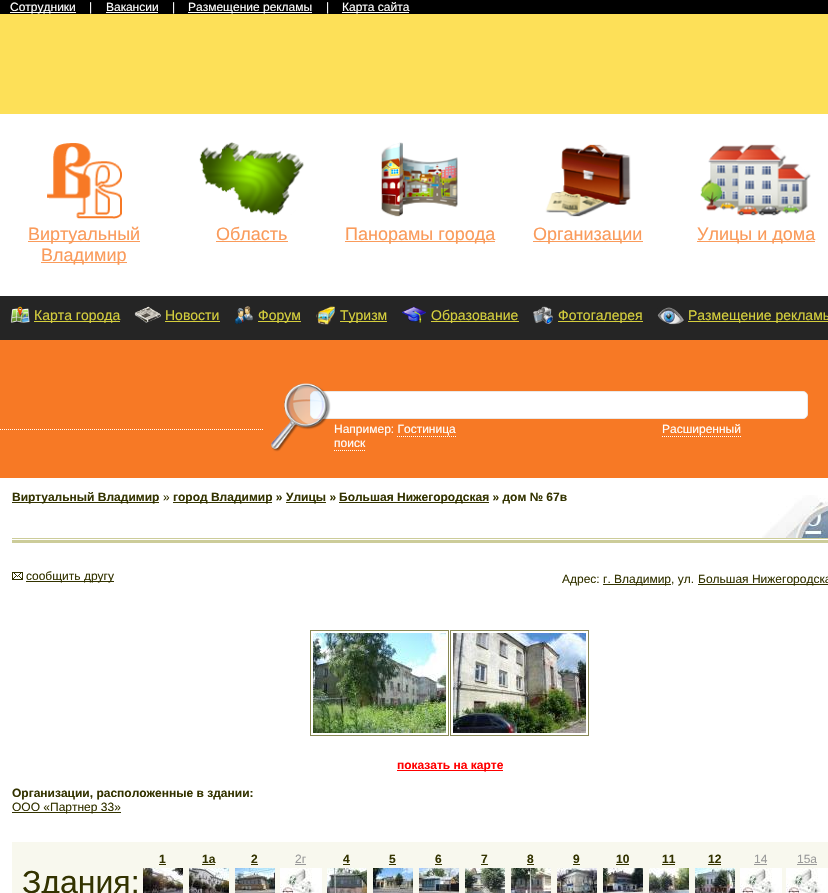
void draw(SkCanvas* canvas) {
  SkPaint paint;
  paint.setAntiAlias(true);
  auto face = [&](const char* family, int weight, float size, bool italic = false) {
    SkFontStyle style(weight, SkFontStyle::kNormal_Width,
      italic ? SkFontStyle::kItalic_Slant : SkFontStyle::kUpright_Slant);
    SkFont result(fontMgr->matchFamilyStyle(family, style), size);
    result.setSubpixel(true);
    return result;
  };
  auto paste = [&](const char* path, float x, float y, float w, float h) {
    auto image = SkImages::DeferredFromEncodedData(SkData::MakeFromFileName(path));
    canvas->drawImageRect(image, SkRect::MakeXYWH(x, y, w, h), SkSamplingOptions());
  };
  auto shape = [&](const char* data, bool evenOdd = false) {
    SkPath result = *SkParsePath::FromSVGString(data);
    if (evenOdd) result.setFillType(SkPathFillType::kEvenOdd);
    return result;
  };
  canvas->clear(0xffffffff);
  {
    const struct { float x, y, w, h; SkColor color; } items[] = {
      {0, 0, 828, 14, 0xff000000},
      {10, 12, 66, 1, 0xffffffff},
      {106, 12, 52, 1, 0xffffffff},
      {188, 12, 124, 1, 0xffffffff},
      {342, 12, 67, 1, 0xffffffff},
      {0, 14, 828, 100, 0xfffde058},
    };
    for (auto [x, y, w, h, color] : items) {
      paint.setColor(color);
      canvas->drawRect(SkRect::MakeXYWH(x, y, w, h), paint);
    }
  }
  paste("img/1.png", 47, 143, 75, 76);
  paint.setColor(0xfffa9b5b);
  canvas->drawRect(SkRect::MakeXYWH(28, 241, 112, 1), paint);
  canvas->drawRect(SkRect::MakeXYWH(41, 262, 86, 1), paint);
  paste("img/2.png", 199, 142, 105, 74);
  canvas->drawRect(SkRect::MakeXYWH(216, 241, 72, 1), paint);
  paste("img/3.png", 381, 142, 77, 75);
  canvas->drawRect(SkRect::MakeXYWH(345, 241, 150, 1), paint);
  paste("img/4.png", 545, 144, 86, 73);
  canvas->drawRect(SkRect::MakeXYWH(533, 241, 110, 1), paint);
  paste("img/5.png", 700, 144, 111, 72);
  canvas->drawRect(SkRect::MakeXYWH(697, 241, 118, 1), paint);
  paint.setColor(0xff252525);
  canvas->drawRect(SkRect::MakeXYWH(0, 296, 828, 44), paint);
  paste("img/6.png", 10, 306, 20, 17);
  paint.setColor(0xffd5cf3d);
  canvas->drawRect(SkRect::MakeXYWH(34, 321, 86, 1), paint);
  paste("img/7.png", 134, 306, 27, 17);
  canvas->drawRect(SkRect::MakeXYWH(165, 321, 55, 1), paint);
  paste("img/8.png", 235, 306, 18, 18);
  canvas->drawRect(SkRect::MakeXYWH(258, 321, 43, 1), paint);
  paste("img/9.png", 316, 306, 19, 19);
  canvas->drawRect(SkRect::MakeXYWH(340, 321, 47, 1), paint);
  paste("img/10.png", 402, 306, 24, 17);
  canvas->drawRect(SkRect::MakeXYWH(431, 321, 88, 1), paint);
  paste("img/11.png", 533, 306, 20, 18);
  canvas->drawRect(SkRect::MakeXYWH(558, 321, 85, 1), paint);
  paste("img/12.png", 657, 307, 27, 18);
  canvas->drawRect(SkRect::MakeXYWH(688, 321, 140, 1), paint);
  paint.setColor(0xfff77925);
  canvas->drawRect(SkRect::MakeXYWH(0, 340, 828, 138), paint);
  paint.setStroke(true);
  paint.setStrokeWidth(1);
  paint.setColor(0xffffffff);
  paint.setPathEffect(SkDashPathEffect::Make({{1, 1}}, 0));
  canvas->drawPath(shape("M0 429.5H264"), paint);
  paint.setPathEffect(nullptr);
  paint.setStroke(false);
  canvas->drawRoundRect(SkRect::MakeXYWH(310.5f, 391.5f, 497, 27), 4.5f, 4.5f, paint);
  paint.setStroke(true);
  paint.setColor(0xffeae9e7);
  canvas->drawRoundRect(SkRect::MakeXYWH(310.5f, 391.5f, 497, 27), 4.5f, 4.5f, paint);
  paste("img/13.png", 271, 383, 60, 69);
  paint.setColor(0xffffffff);
  paint.setPathEffect(SkDashPathEffect::Make({{1, 1}}, 0));
  canvas->drawPath(shape("M662 436.5H741"), paint);
  paint.setPathEffect(nullptr);
  paint.setPathEffect(SkDashPathEffect::Make({{1, 1}}, 0));
  canvas->drawPath(shape("M397 436.5H456"), paint);
  paint.setPathEffect(nullptr);
  paint.setPathEffect(SkDashPathEffect::Make({{1, 1}}, 0));
  canvas->drawPath(shape("M334 450.5H365"), paint);
  paint.setPathEffect(nullptr);
  paint.setStroke(false);
  {
    const struct { float x, y, w, h; SkColor color; } items[] = {
      {12, 538, 816, 1, 0xffcccc99},
      {12, 502, 147, 1, 0xff333300},
      {173, 502, 99, 1, 0xff333300},
      {286, 502, 40, 1, 0xff333300},
      {339, 502, 150, 1, 0xff333300},
    };
    for (auto [x, y, w, h, color] : items) {
      paint.setColor(color);
      canvas->drawRect(SkRect::MakeXYWH(x, y, w, h), paint);
    }
  }
  paste("img/14.png", 762, 495, 66, 43);
  paint.setColor(0xffcccc99);
  canvas->drawRect(SkRect::MakeXYWH(12, 540, 816, 3), paint);
  paste("img/15.png", 12, 572, 11, 8);
  {
    const struct { float x, y, w, h; SkColor color; } items[] = {
      {26, 581, 88, 1, 0xff333300},
      {603, 584, 68, 1, 0xff333300},
      {698, 584, 130, 1, 0xff333300},
    };
    for (auto [x, y, w, h, color] : items) {
      paint.setColor(color);
      canvas->drawRect(SkRect::MakeXYWH(x, y, w, h), paint);
    }
  }
  paint.setStroke(true);
  paint.setColor(0xff888855);
  canvas->drawRect(SkRect::MakeXYWH(310.5f, 630.5f, 138, 105), paint);
  canvas->drawRect(SkRect::MakeXYWH(450.5f, 630.5f, 138, 105), paint);
  paste("img/16.png", 313, 633, 133, 100);
  paste("img/17.png", 453, 633, 133, 100);
  paint.setStroke(false);
  {
    const struct { float x, y, w, h; SkColor color; } items[] = {
      {397, 770, 106, 1, 0xffff0000},
      {12, 812, 109, 1, 0xff333300},
      {12, 842, 816, 51, 0xfff8f8ee},
      {159, 864, 7, 1, 0xff333300},
    };
    for (auto [x, y, w, h, color] : items) {
      paint.setColor(color);
      canvas->drawRect(SkRect::MakeXYWH(x, y, w, h), paint);
    }
  }
  paste("img/18.png", 143, 868, 40, 25);
  canvas->drawRect(SkRect::MakeXYWH(202, 864, 13, 1), paint);
  paste("img/19.png", 189, 868, 40, 25);
  canvas->drawRect(SkRect::MakeXYWH(251, 864, 7, 1), paint);
  paste("img/20.png", 235, 868, 40, 25);
  paint.setColor(0xff999999);
  canvas->drawRect(SkRect::MakeXYWH(295, 864, 11, 1), paint);
  paste("img/21.png", 280, 868, 42, 25);
  paint.setColor(0xff333300);
  canvas->drawRect(SkRect::MakeXYWH(343, 864, 7, 1), paint);
  paste("img/22.png", 327, 868, 40, 25);
  canvas->drawRect(SkRect::MakeXYWH(389, 864, 7, 1), paint);
  paste("img/23.png", 373, 868, 40, 25);
  canvas->drawRect(SkRect::MakeXYWH(435, 864, 7, 1), paint);
  paste("img/24.png", 419, 868, 40, 25);
  canvas->drawRect(SkRect::MakeXYWH(481, 864, 7, 1), paint);
  paste("img/25.png", 465, 868, 40, 25);
  canvas->drawRect(SkRect::MakeXYWH(527, 864, 7, 1), paint);
  paste("img/26.png", 511, 868, 40, 25);
  canvas->drawRect(SkRect::MakeXYWH(573, 864, 7, 1), paint);
  paste("img/27.png", 557, 868, 40, 25);
  canvas->drawRect(SkRect::MakeXYWH(616, 864, 13, 1), paint);
  paste("img/28.png", 603, 868, 40, 25);
  canvas->drawRect(SkRect::MakeXYWH(662, 864, 13, 1), paint);
  paste("img/29.png", 649, 868, 40, 25);
  canvas->drawRect(SkRect::MakeXYWH(708, 864, 13, 1), paint);
  paste("img/30.png", 695, 868, 40, 25);
  paint.setColor(0xff999999);
  canvas->drawRect(SkRect::MakeXYWH(754, 864, 13, 1), paint);
  paste("img/21.png", 740, 868, 42, 25);
  canvas->drawRect(SkRect::MakeXYWH(797, 864, 20, 1), paint);
  paste("img/21.png", 786, 868, 42, 25);
  auto f0 = face("Liberation Sans", 400, 12);
  paint.setColor(0xffffffff);
  {
    const struct { const char* s; float x, y; } items[] = {
      {"Сотрудники", 10, 11},
      {"|", 89, 11},
      {"Вакансии", 106, 11},
      {"|", 172, 11},
      {"Размещение рекламы", 188, 11},
      {"|", 326, 11},
      {"Карта сайта", 342, 11},
    };
    for (auto [s, x, y] : items) {
      canvas->drawString(s, x, y, f0, paint);
    }
  }
  auto f1 = face("Liberation Sans", 400, 18);
  paint.setColor(0xfffa9b5b);
  {
    const struct { const char* s; float x, y; } items[] = {
      {"Виртуальный", 28, 240},
      {"Владимир", 41, 261},
      {"Область", 216, 240},
      {"Панорамы города", 345, 240},
      {"Организации", 533, 240},
      {"Улицы и дома", 697, 240},
    };
    for (auto [s, x, y] : items) {
      canvas->drawString(s, x, y, f1, paint);
    }
  }
  auto f2 = face("Liberation Sans", 400, 14);
  paint.setColor(0xffd5cf3d);
  {
    const struct { const char* s; float x, y; } items[] = {
      {"Карта города", 34, 320},
      {"Новости", 165, 320},
      {"Форум", 258, 320},
      {"Туризм", 340, 320},
      {"Образование", 431, 320},
      {"Фотогалерея", 558, 320},
      {"Размещение рекламы", 688, 320},
    };
    for (auto [s, x, y] : items) {
      canvas->drawString(s, x, y, f2, paint);
    }
  }
  paint.setColor(0xffffffff);
  {
    const struct { const char* s; float x, y; } items[] = {
      {"Например: Гостиница", 334, 433},
      {"Расширенный", 662, 433},
      {"поиск", 334, 447},
    };
    for (auto [s, x, y] : items) {
      canvas->drawString(s, x, y, f0, paint);
    }
  }
  auto f3 = face("Liberation Sans", 700, 12);
  paint.setColor(0xff333300);
  canvas->drawString("Виртуальный Владимир", 12, 501, f3, paint);
  canvas->drawString("»", 163, 501, f0, paint);
  {
    const struct { const char* s; float x, y; } items[] = {
      {"город Владимир »", 173, 501},
      {"Улицы »", 286, 501},
      {"Большая Нижегородская » дом № 67в", 339, 501},
    };
    for (auto [s, x, y] : items) {
      canvas->drawString(s, x, y, f3, paint);
    }
  }
  {
    const struct { const char* s; float x, y; } items[] = {
      {"cообщить другу", 26, 580},
      {"Адрес: г.", 562, 583},
      {"Владимир, ул.", 614, 583},
      {"Большая Нижегородска", 698, 583},
    };
    for (auto [s, x, y] : items) {
      canvas->drawString(s, x, y, f0, paint);
    }
  }
  paint.setColor(0xffff0000);
  canvas->drawString("показать на карте", 397, 769, f3, paint);
  paint.setColor(0xff333300);
  canvas->drawString("Организации, расположенные в здании:", 12, 797, f3, paint);
  canvas->drawString("ООО «Партнер 33»", 12, 811, f0, paint);
  {
    const struct { const char* s; float x, y; } items[] = {
      {"1", 159, 863},
      {"1а", 202, 863},
      {"2", 251, 863},
    };
    for (auto [s, x, y] : items) {
      canvas->drawString(s, x, y, f3, paint);
    }
  }
  paint.setColor(0xff999999);
  canvas->drawString("2г", 295, 863, f0, paint);
  paint.setColor(0xff333300);
  {
    const struct { const char* s; float x, y; } items[] = {
      {"4", 343, 863},
      {"5", 389, 863},
      {"6", 435, 863},
      {"7", 481, 863},
      {"8", 527, 863},
      {"9", 573, 863},
      {"10", 616, 863},
      {"11", 662, 863},
      {"12", 708, 863},
    };
    for (auto [s, x, y] : items) {
      canvas->drawString(s, x, y, f3, paint);
    }
  }
  paint.setColor(0xff999999);
  canvas->drawString("14", 754, 863, f0, paint);
  canvas->drawString("15а", 797, 863, f0, paint);
  auto f4 = face("Liberation Sans", 400, 32);
  paint.setColor(0xff333300);
  canvas->drawString("Здания:", 22, 893, f4, paint);
}
